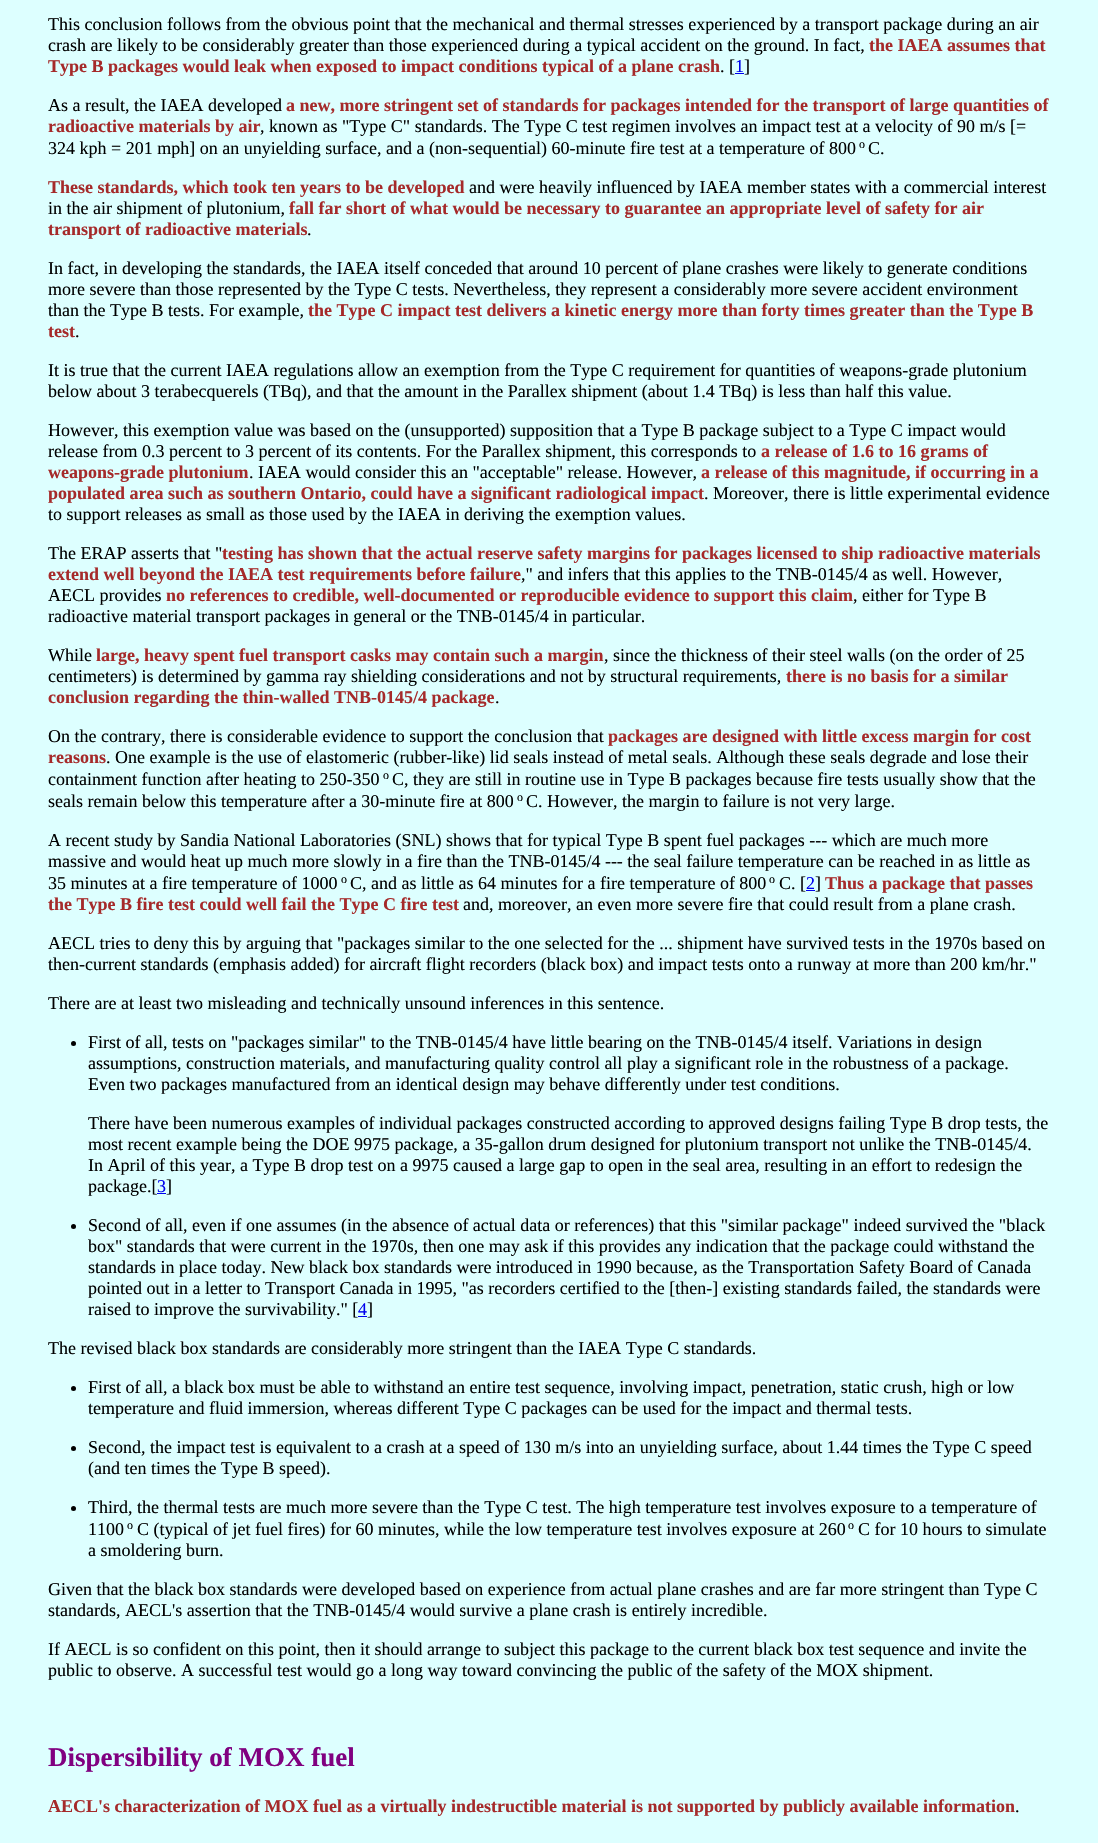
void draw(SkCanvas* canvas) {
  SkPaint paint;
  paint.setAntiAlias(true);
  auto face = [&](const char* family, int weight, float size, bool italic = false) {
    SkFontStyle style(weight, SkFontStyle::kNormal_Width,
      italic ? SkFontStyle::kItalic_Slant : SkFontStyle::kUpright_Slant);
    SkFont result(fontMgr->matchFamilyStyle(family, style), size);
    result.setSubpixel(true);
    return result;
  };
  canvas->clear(0xffddffff);
  paint.setColor(0xff0000ee);
  canvas->drawRect(SkRect::MakeXYWH(735, 73, 9, 1), paint);
  canvas->drawRect(SkRect::MakeXYWH(806, 890, 9, 1), paint);
  paint.setColor(0xff000000);
  canvas->drawCircle(73.5f, 1043.5f, 2.5f, paint);
  paint.setColor(0xff0000ee);
  canvas->drawRect(SkRect::MakeXYWH(157, 1193, 9, 1), paint);
  paint.setColor(0xff000000);
  canvas->drawCircle(73.5f, 1226.5f, 2.5f, paint);
  paint.setColor(0xff0000ee);
  canvas->drawRect(SkRect::MakeXYWH(358, 1316, 9, 1), paint);
  paint.setColor(0xff000000);
  canvas->drawCircle(73.5f, 1388.5f, 2.5f, paint);
  canvas->drawCircle(73.5f, 1448.5f, 2.5f, paint);
  canvas->drawCircle(73.5f, 1508.5f, 2.5f, paint);
  auto f0 = face("Liberation Serif", 400, 18);
  canvas->drawString("This conclusion follows from the obvious point that the mechanical and thermal stresses experienced by a transport package during an air", 48, 30, f0, paint);
  canvas->drawString("crash are likely to be considerably greater than those experienced during a typical accident on the ground. In fact,", 48, 51, f0, paint);
  auto f1 = face("Liberation Serif", 700, 18);
  paint.setColor(0xffa52a2a);
  canvas->drawString("the IAEA assumes that", 869, 51, f1, paint);
  canvas->drawString("Type B packages would leak when exposed to impact conditions typical of a plane crash", 48, 72, f1, paint);
  paint.setColor(0xff000000);
  canvas->drawString(". [", 720, 72, f0, paint);
  paint.setColor(0xff0000ee);
  canvas->drawString("1", 735, 72, f0, paint);
  paint.setColor(0xff000000);
  canvas->drawString("]", 744, 72, f0, paint);
  canvas->drawString("As a result, the IAEA developed", 48, 111, f0, paint);
  paint.setColor(0xffa52a2a);
  canvas->drawString("a new, more stringent set of standards for packages intended for the transport of large quantities of", 286, 111, f1, paint);
  canvas->drawString("radioactive materials by air", 48, 132, f1, paint);
  paint.setColor(0xff000000);
  canvas->drawString(", known as \"Type C\" standards. The Type C test regimen involves an impact test at a velocity of 90 m/s [=", 260, 132, f0, paint);
  canvas->drawString("324 kph = 201 mph] on an unyielding surface, and a (non-sequential) 60-minute fire test at a temperature of 800", 48, 154, f0, paint);
  auto f2 = face("Liberation Serif", 400, 12);
  canvas->drawString("o", 859, 148, f2, paint);
  canvas->drawString("C.", 868, 154, f0, paint);
  paint.setColor(0xffa52a2a);
  canvas->drawString("These standards, which took ten years to be developed", 48, 193, f1, paint);
  paint.setColor(0xff000000);
  canvas->drawString("and were heavily influenced by IAEA member states with a commercial interest", 469, 193, f0, paint);
  canvas->drawString("in the air shipment of plutonium,", 48, 214, f0, paint);
  paint.setColor(0xffa52a2a);
  canvas->drawString("fall far short of what would be necessary to guarantee an appropriate level of safety for air", 289, 214, f1, paint);
  canvas->drawString("transport of radioactive materials", 48, 235, f1, paint);
  paint.setColor(0xff000000);
  {
    const struct { const char* s; float x, y; } items[] = {
      {".", 307, 235},
      {"In fact, in developing the standards, the IAEA itself conceded that around 10 percent of plane crashes were likely to generate conditions", 48, 274},
      {"more severe than those represented by the Type C tests. Nevertheless, they represent a considerably more severe accident environment", 48, 295},
      {"than the Type B tests. For example,", 48, 316},
    };
    for (auto [s, x, y] : items) {
      canvas->drawString(s, x, y, f0, paint);
    }
  }
  paint.setColor(0xffa52a2a);
  canvas->drawString("the Type C impact test delivers a kinetic energy more than forty times greater than the Type B", 308, 316, f1, paint);
  canvas->drawString("test", 48, 337, f1, paint);
  paint.setColor(0xff000000);
  {
    const struct { const char* s; float x, y; } items[] = {
      {".", 75, 337},
      {"It is true that the current IAEA regulations allow an exemption from the Type C requirement for quantities of weapons-grade plutonium", 48, 376},
      {"below about 3 terabecquerels (TBq), and that the amount in the Parallex shipment (about 1.4 TBq) is less than half this value.", 48, 397},
      {"However, this exemption value was based on the (unsupported) supposition that a Type B package subject to a Type C impact would", 48, 436},
      {"release from 0.3 percent to 3 percent of its contents. For the Parallex shipment, this corresponds to", 48, 457},
    };
    for (auto [s, x, y] : items) {
      canvas->drawString(s, x, y, f0, paint);
    }
  }
  paint.setColor(0xffa52a2a);
  canvas->drawString("a release of 1.6 to 16 grams of", 761, 457, f1, paint);
  canvas->drawString("weapons-grade plutonium", 48, 478, f1, paint);
  paint.setColor(0xff000000);
  canvas->drawString(". IAEA would consider this an \"acceptable\" release. However,", 249, 478, f0, paint);
  paint.setColor(0xffa52a2a);
  canvas->drawString("a release of this magnitude, if occurring in a", 701, 478, f1, paint);
  canvas->drawString("populated area such as southern Ontario, could have a significant radiological impact", 48, 499, f1, paint);
  paint.setColor(0xff000000);
  {
    const struct { const char* s; float x, y; } items[] = {
      {". Moreover, there is little experimental evidence", 704, 499},
      {"to support releases as small as those used by the IAEA in deriving the exemption values.", 48, 520},
      {"The ERAP asserts that \"", 48, 559},
    };
    for (auto [s, x, y] : items) {
      canvas->drawString(s, x, y, f0, paint);
    }
  }
  paint.setColor(0xffa52a2a);
  canvas->drawString("testing has shown that the actual reserve safety margins for packages licensed to ship radioactive materials", 222, 559, f1, paint);
  canvas->drawString("extend well beyond the IAEA test requirements before failure", 48, 580, f1, paint);
  paint.setColor(0xff000000);
  canvas->drawString(",\" and infers that this applies to the TNB-0145/4 as well. However,", 521, 580, f0, paint);
  canvas->drawString("AECL provides", 48, 601, f0, paint);
  paint.setColor(0xffa52a2a);
  canvas->drawString("no references to credible, well-documented or reproducible evidence to support this claim", 166, 601, f1, paint);
  paint.setColor(0xff000000);
  {
    const struct { const char* s; float x, y; } items[] = {
      {", either for Type B", 853, 601},
      {"radioactive material transport packages in general or the TNB-0145/4 in particular.", 48, 622},
      {"While", 48, 661},
    };
    for (auto [s, x, y] : items) {
      canvas->drawString(s, x, y, f0, paint);
    }
  }
  paint.setColor(0xffa52a2a);
  canvas->drawString("large, heavy spent fuel transport casks may contain such a margin", 96, 661, f1, paint);
  paint.setColor(0xff000000);
  canvas->drawString(", since the thickness of their steel walls (on the order of 25", 604, 661, f0, paint);
  canvas->drawString("centimeters) is determined by gamma ray shielding considerations and not by structural requirements,", 48, 682, f0, paint);
  paint.setColor(0xffa52a2a);
  canvas->drawString("there is no basis for a similar", 786, 682, f1, paint);
  canvas->drawString("conclusion regarding the thin-walled TNB-0145/4 package", 48, 703, f1, paint);
  paint.setColor(0xff000000);
  canvas->drawString(".", 495, 703, f0, paint);
  canvas->drawString("On the contrary, there is considerable evidence to support the conclusion that", 48, 742, f0, paint);
  paint.setColor(0xffa52a2a);
  canvas->drawString("packages are designed with little excess margin for cost", 608, 742, f1, paint);
  canvas->drawString("reasons", 48, 763, f1, paint);
  paint.setColor(0xff000000);
  canvas->drawString(". One example is the use of elastomeric (rubber-like) lid seals instead of metal seals. Although these seals degrade and lose their", 106, 763, f0, paint);
  canvas->drawString("containment function after heating to 250-350", 48, 785, f0, paint);
  canvas->drawString("o", 383, 779, f2, paint);
  canvas->drawString("C, they are still in routine use in Type B packages because fire tests usually show that the", 392, 785, f0, paint);
  canvas->drawString("seals remain below this temperature after a 30-minute fire at 800", 48, 807, f0, paint);
  canvas->drawString("o", 517, 801, f2, paint);
  {
    const struct { const char* s; float x, y; } items[] = {
      {"C. However, the margin to failure is not very large.", 526, 807},
      {"A recent study by Sandia National Laboratories (SNL) shows that for typical Type B spent fuel packages --- which are much more", 48, 846},
      {"massive and would heat up much more slowly in a fire than the TNB-0145/4 --- the seal failure temperature can be reached in as little as", 48, 867},
      {"35 minutes at a fire temperature of 1000", 48, 889},
    };
    for (auto [s, x, y] : items) {
      canvas->drawString(s, x, y, f0, paint);
    }
  }
  canvas->drawString("o", 341, 883, f2, paint);
  canvas->drawString("C, and as little as 64 minutes for a fire temperature of 800", 350, 889, f0, paint);
  canvas->drawString("o", 769, 883, f2, paint);
  canvas->drawString("C. [", 779, 889, f0, paint);
  paint.setColor(0xff0000ee);
  canvas->drawString("2", 806, 889, f0, paint);
  paint.setColor(0xff000000);
  canvas->drawString("]", 815, 889, f0, paint);
  paint.setColor(0xffa52a2a);
  canvas->drawString("Thus a package that passes", 825, 889, f1, paint);
  canvas->drawString("the Type B fire test could well fail the Type C fire test", 48, 910, f1, paint);
  paint.setColor(0xff000000);
  {
    const struct { const char* s; float x, y; } items[] = {
      {"and, moreover, an even more severe fire that could result from a plane crash.", 463, 910},
      {"AECL tries to deny this by arguing that \"packages similar to the one selected for the ... shipment have survived tests in the 1970s based on", 48, 949},
      {"then-current standards (emphasis added) for aircraft flight recorders (black box) and impact tests onto a runway at more than 200 km/hr.\"", 48, 970},
      {"There are at least two misleading and technically unsound inferences in this sentence.", 48, 1009},
      {"First of all, tests on \"packages similar\" to the TNB-0145/4 have little bearing on the TNB-0145/4 itself. Variations in design", 88, 1048},
      {"assumptions, construction materials, and manufacturing quality control all play a significant role in the robustness of a package.", 88, 1069},
      {"Even two packages manufactured from an identical design may behave differently under test conditions.", 88, 1090},
      {"There have been numerous examples of individual packages constructed according to approved designs failing Type B drop tests, the", 88, 1129},
      {"most recent example being the DOE 9975 package, a 35-gallon drum designed for plutonium transport not unlike the TNB-0145/4.", 88, 1150},
      {"In April of this year, a Type B drop test on a 9975 caused a large gap to open in the seal area, resulting in an effort to redesign the", 88, 1171},
      {"package.[", 88, 1192},
    };
    for (auto [s, x, y] : items) {
      canvas->drawString(s, x, y, f0, paint);
    }
  }
  paint.setColor(0xff0000ee);
  canvas->drawString("3", 157, 1192, f0, paint);
  paint.setColor(0xff000000);
  {
    const struct { const char* s; float x, y; } items[] = {
      {"]", 166, 1192},
      {"Second of all, even if one assumes (in the absence of actual data or references) that this \"similar package\" indeed survived the \"black", 88, 1231},
      {"box\" standards that were current in the 1970s, then one may ask if this provides any indication that the package could withstand the", 88, 1252},
      {"standards in place today. New black box standards were introduced in 1990 because, as the Transportation Safety Board of Canada", 88, 1273},
      {"pointed out in a letter to Transport Canada in 1995, \"as recorders certified to the [then-] existing standards failed, the standards were", 88, 1294},
      {"raised to improve the survivability.\" [", 88, 1315},
    };
    for (auto [s, x, y] : items) {
      canvas->drawString(s, x, y, f0, paint);
    }
  }
  paint.setColor(0xff0000ee);
  canvas->drawString("4", 358, 1315, f0, paint);
  paint.setColor(0xff000000);
  {
    const struct { const char* s; float x, y; } items[] = {
      {"]", 367, 1315},
      {"The revised black box standards are considerably more stringent than the IAEA Type C standards.", 48, 1354},
      {"First of all, a black box must be able to withstand an entire test sequence, involving impact, penetration, static crush, high or low", 88, 1393},
      {"temperature and fluid immersion, whereas different Type C packages can be used for the impact and thermal tests.", 88, 1414},
      {"Second, the impact test is equivalent to a crash at a speed of 130 m/s into an unyielding surface, about 1.44 times the Type C speed", 88, 1453},
      {"(and ten times the Type B speed).", 88, 1474},
      {"Third, the thermal tests are much more severe than the Type C test. The high temperature test involves exposure to a temperature of", 88, 1513},
      {"1100", 88, 1535},
    };
    for (auto [s, x, y] : items) {
      canvas->drawString(s, x, y, f0, paint);
    }
  }
  canvas->drawString("o", 127, 1529, f2, paint);
  canvas->drawString("C (typical of jet fuel fires) for 60 minutes, while the low temperature test involves exposure at 260", 137, 1535, f0, paint);
  canvas->drawString("o", 848, 1529, f2, paint);
  {
    const struct { const char* s; float x, y; } items[] = {
      {"C for 10 hours to simulate", 858, 1535},
      {"a smoldering burn.", 88, 1556},
      {"Given that the black box standards were developed based on experience from actual plane crashes and are far more stringent than Type C", 48, 1595},
      {"standards, AECL's assertion that the TNB-0145/4 would survive a plane crash is entirely incredible.", 48, 1616},
      {"If AECL is so confident on this point, then it should arrange to subject this package to the current black box test sequence and invite the", 48, 1655},
      {"public to observe. A successful test would go a long way toward convincing the public of the safety of the MOX shipment.", 48, 1676},
    };
    for (auto [s, x, y] : items) {
      canvas->drawString(s, x, y, f0, paint);
    }
  }
  auto f3 = face("Liberation Serif", 700, 27);
  paint.setColor(0xff800080);
  canvas->drawString("Dispersibility of MOX fuel", 48, 1766, f3, paint);
  paint.setColor(0xffa52a2a);
  canvas->drawString("AECL's characterization of MOX fuel as a virtually indestructible material is not supported by publicly available information", 48, 1812, f1, paint);
  paint.setColor(0xff000000);
  canvas->drawString(".", 1015, 1812, f0, paint);
}
